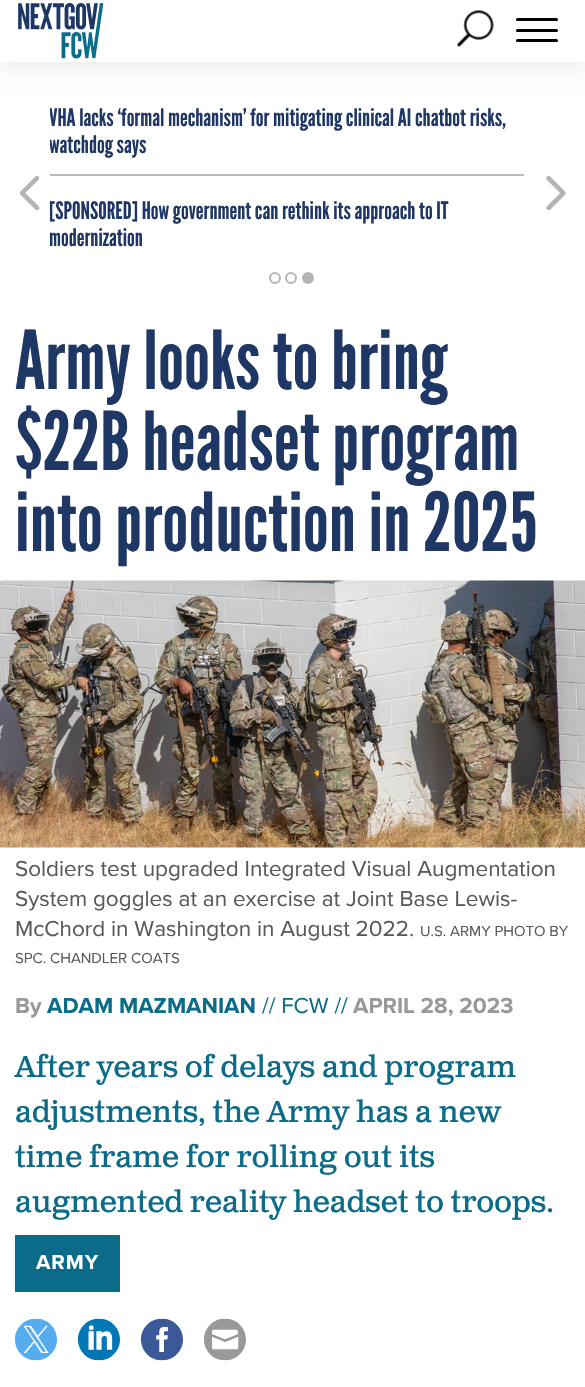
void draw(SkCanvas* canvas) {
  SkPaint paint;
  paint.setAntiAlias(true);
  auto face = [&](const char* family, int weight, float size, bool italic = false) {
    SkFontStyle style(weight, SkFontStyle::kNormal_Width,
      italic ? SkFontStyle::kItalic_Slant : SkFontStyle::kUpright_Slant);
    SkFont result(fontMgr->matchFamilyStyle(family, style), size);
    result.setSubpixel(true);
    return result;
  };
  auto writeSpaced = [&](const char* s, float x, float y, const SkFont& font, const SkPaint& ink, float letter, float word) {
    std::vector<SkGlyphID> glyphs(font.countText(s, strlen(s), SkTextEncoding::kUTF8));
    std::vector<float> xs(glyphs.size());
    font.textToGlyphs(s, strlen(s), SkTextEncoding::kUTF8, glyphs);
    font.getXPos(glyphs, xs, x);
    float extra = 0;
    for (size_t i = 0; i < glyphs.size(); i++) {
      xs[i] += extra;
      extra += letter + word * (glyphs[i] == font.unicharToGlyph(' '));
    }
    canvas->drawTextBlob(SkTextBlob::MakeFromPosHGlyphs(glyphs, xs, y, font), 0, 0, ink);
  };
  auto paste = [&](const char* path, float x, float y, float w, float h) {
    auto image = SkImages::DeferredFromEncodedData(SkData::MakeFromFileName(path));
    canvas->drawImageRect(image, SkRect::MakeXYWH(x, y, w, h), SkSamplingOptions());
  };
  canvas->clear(0xffffffff);
  paint.setColor(0x14000000);
  paint.setMaskFilter(SkMaskFilter::MakeBlur(kNormal_SkBlurStyle, 11));
  canvas->drawRect(SkRect::MakeXYWH(0, 6, 585, 62), paint);
  paint.setMaskFilter(nullptr);
  paint.setColor(0xffffffff);
  canvas->drawRect(SkRect::MakeXYWH(0, 0, 585, 62), paint);
  paste("img/1.png", 18, 3, 86, 56);
  paste("img/2.png", 457, 10, 37, 37);
  paint.setColor(0xff000000);
  canvas->drawRoundRect(SkRect::MakeXYWH(516, 29, 42, 3), 1.5f, 1.5f, paint);
  canvas->drawRoundRect(SkRect::MakeXYWH(516, 18, 42, 3), 1.5f, 1.5f, paint);
  canvas->drawRoundRect(SkRect::MakeXYWH(516, 39, 42, 3), 1.5f, 1.5f, paint);
  paste("img/3.png", 19, 176, 21, 34);
  paint.setColor(0xffbbbbbb);
  canvas->drawRect(SkRect::MakeXYWH(50, 174, 474, 2), paint);
  paste("img/4.png", 546, 176, 20, 34);
  paint.setStroke(true);
  paint.setStrokeWidth(2);
  paint.setColor(0xffb4b4b4);
  canvas->drawCircle(275, 278, 5, paint);
  canvas->drawCircle(291, 278, 5, paint);
  paint.setStroke(false);
  canvas->drawCircle(308, 278, 5, paint);
  paint.setStroke(true);
  canvas->drawCircle(308, 278, 5, paint);
  paste("img/5.png", 0, 580, 585, 268);
  paint.setStroke(false);
  paint.setColor(0xff0b6c8a);
  canvas->drawRect(SkRect::MakeXYWH(15, 1235, 105, 57), paint);
  paste("img/6.png", 15, 1318, 42, 43);
  paste("img/7.png", 78, 1318, 42, 43);
  paste("img/8.png", 141, 1318, 42, 43);
  paste("img/9.png", 204, 1318, 42, 43);
  canvas->save();
  canvas->clipRect(SkRect::MakeXYWH(50, 105, 474, 54));
  auto f0 = face("League Gothic", 400, 24);
  paint.setColor(0xff1f3765);
  canvas->drawString("VHA lacks ‘formal mechanism’ for mitigating clinical AI chatbot risks,", 49, 126, f0, paint);
  canvas->drawString("watchdog says", 49, 153, f0, paint);
  canvas->restore();
  canvas->drawString("[SPONSORED] How government can rethink its approach to IT", 49, 219, f0, paint);
  canvas->drawString("modernization", 49, 246, f0, paint);
  auto f1 = face("League Gothic", 400, 81);
  {
    const struct { const char* s; float x, y; } items[] = {
      {"Army looks to bring", 15, 389},
      {"$22B headset program", 15, 470},
      {"into production in 2025", 15, 551},
    };
    for (auto [s, x, y] : items) {
      canvas->drawString(s, x, y, f1, paint);
    }
  }
  auto f2 = face("Proxima Nova", 400, 22.5f);
  paint.setColor(0xff58595b);
  {
    const struct { const char* s; float x, y; } items[] = {
      {"Soldiers test upgraded Integrated Visual Augmentation", 15, 876},
      {"System goggles at an exercise at Joint Base Lewis-", 15, 906},
      {"McChord in Washington in August 2022.", 15, 936},
    };
    for (auto [s, x, y] : items) {
      canvas->drawString(s, x, y, f2, paint);
    }
  }
  auto f3 = face("Proxima Nova", 400, 15);
  canvas->drawString("U.S. ARMY PHOTO BY", 420, 936, f3, paint);
  canvas->drawString("SPC. CHANDLER COATS", 15, 963, f3, paint);
  auto f4 = face("Proxima Nova", 700, 22.5f);
  paint.setColor(0xff999999);
  canvas->drawString("By", 15, 1013, f4, paint);
  paint.setColor(0xff0b6c8a);
  canvas->drawString("ADAM MAZMANIAN", 47, 1013, f4, paint);
  canvas->drawString("// FCW //", 262, 1013, f2, paint);
  paint.setColor(0xff999999);
  canvas->drawString("APRIL 28, 2023", 353, 1013, f4, paint);
  auto f5 = face("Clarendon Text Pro", 400, 30);
  paint.setColor(0xff0b6c8a);
  {
    const struct { const char* s; float x, y; } items[] = {
      {"After years of delays and program", 15, 1077},
      {"adjustments, the Army has a new", 15, 1122},
      {"time frame for rolling out its", 15, 1167},
      {"augmented reality headset to troops.", 15, 1212},
    };
    for (auto [s, x, y] : items) {
      canvas->drawString(s, x, y, f5, paint);
    }
  }
  auto f6 = face("Proxima Nova", 700, 21);
  paint.setColor(0xffffffff);
  writeSpaced("ARMY", 36, 1269, f6, paint, 1, 0);
}
